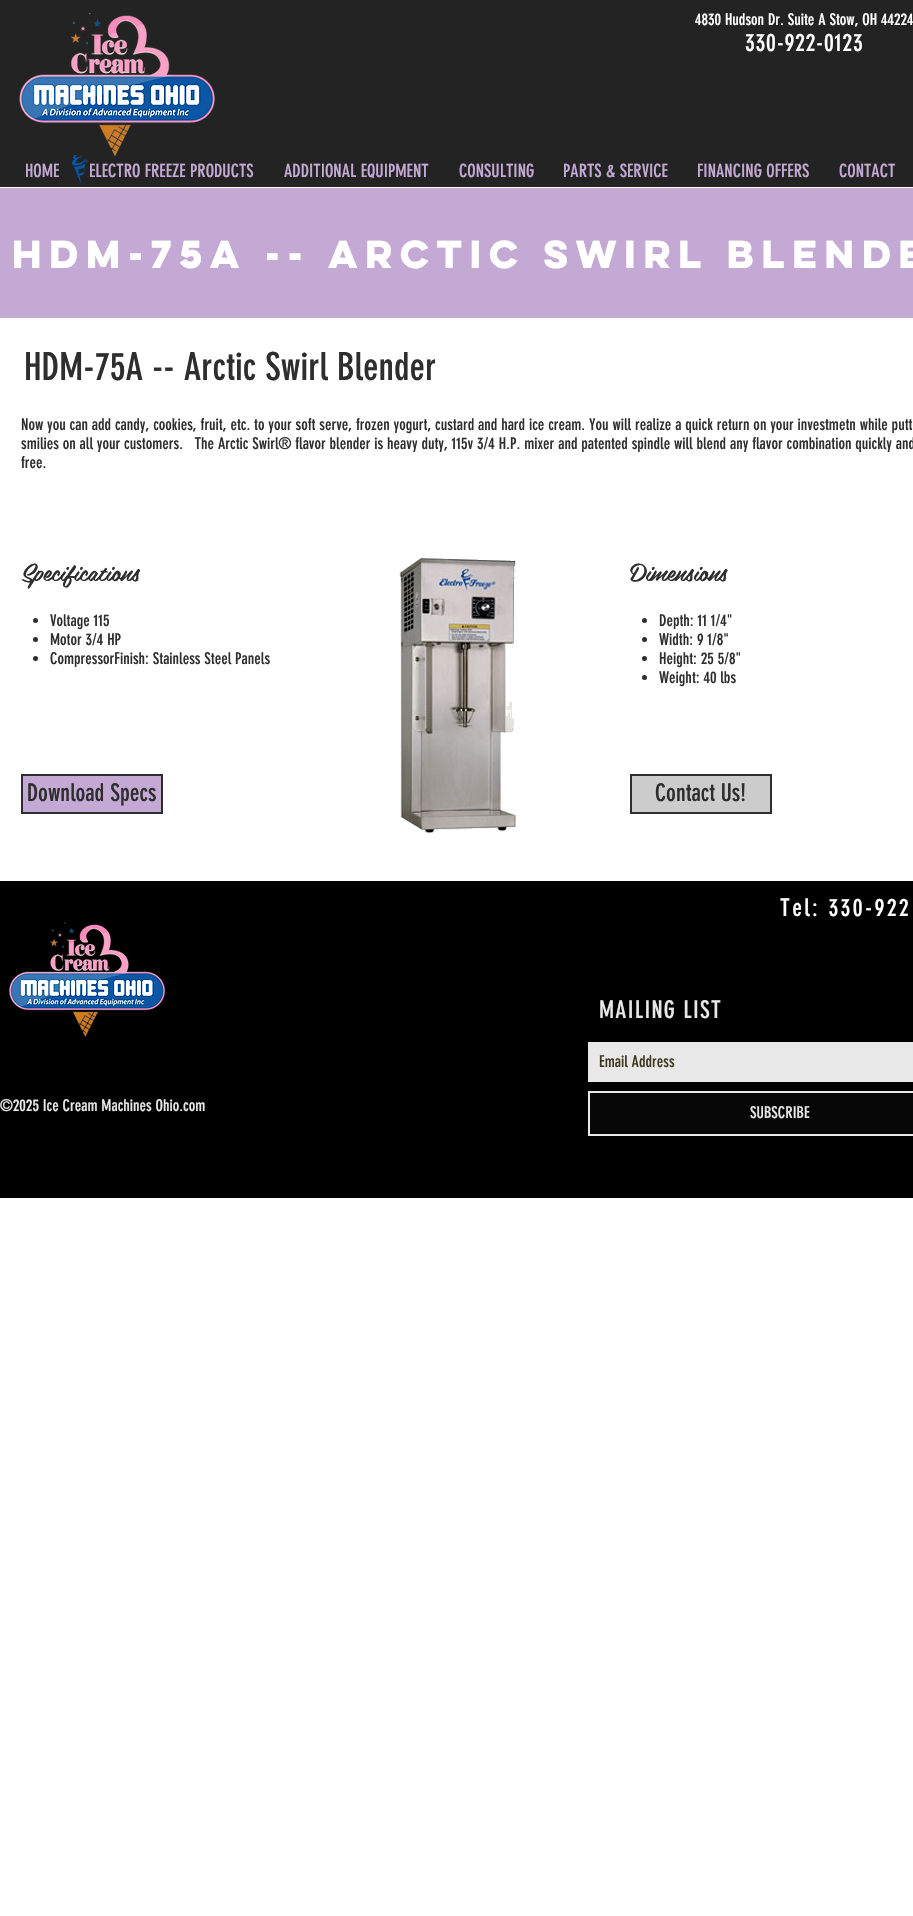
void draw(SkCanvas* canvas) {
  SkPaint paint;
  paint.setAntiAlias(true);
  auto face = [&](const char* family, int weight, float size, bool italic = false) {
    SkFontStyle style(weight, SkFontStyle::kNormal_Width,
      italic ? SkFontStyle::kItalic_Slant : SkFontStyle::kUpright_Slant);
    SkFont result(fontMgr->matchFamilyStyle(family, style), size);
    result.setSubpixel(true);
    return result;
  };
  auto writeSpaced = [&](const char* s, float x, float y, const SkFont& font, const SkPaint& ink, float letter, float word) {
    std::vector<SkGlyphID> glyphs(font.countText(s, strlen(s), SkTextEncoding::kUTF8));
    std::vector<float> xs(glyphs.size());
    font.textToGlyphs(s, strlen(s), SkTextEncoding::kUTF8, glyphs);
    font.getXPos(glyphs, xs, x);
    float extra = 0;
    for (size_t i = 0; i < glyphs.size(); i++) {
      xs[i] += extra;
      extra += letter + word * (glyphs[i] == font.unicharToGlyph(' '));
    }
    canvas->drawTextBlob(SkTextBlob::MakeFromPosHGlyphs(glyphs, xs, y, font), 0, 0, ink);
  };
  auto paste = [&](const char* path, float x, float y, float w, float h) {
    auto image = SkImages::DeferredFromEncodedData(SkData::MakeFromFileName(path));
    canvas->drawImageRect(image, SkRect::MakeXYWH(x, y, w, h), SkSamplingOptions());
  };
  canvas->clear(0xffffffff);
  paint.setColor(0xff242323);
  canvas->drawRect(SkRect::MakeXYWH(0, 0, 913, 187), paint);
  paste("img/1.png", 19, 13, 196, 143);
  paste("img/2.png", 71, 155, 18, 28);
  paint.setColor(0xffc3a9d4);
  canvas->drawRect(SkRect::MakeXYWH(0, 188, 913, 130), paint);
  paste("img/3.png", 399, 558, 117, 276);
  paint.setColor(0xff2f2e2e);
  canvas->drawCircle(35.5f, 620.5f, 2.5f, paint);
  canvas->drawCircle(35.5f, 639.5f, 2.5f, paint);
  canvas->drawCircle(35.5f, 658.5f, 2.5f, paint);
  canvas->drawCircle(644.5f, 620.5f, 2.5f, paint);
  canvas->drawCircle(644.5f, 639.5f, 2.5f, paint);
  canvas->drawCircle(644.5f, 658.5f, 2.5f, paint);
  canvas->drawCircle(644.5f, 677.5f, 2.5f, paint);
  paint.setColor(0xffc3a9d4);
  canvas->drawRect(SkRect::MakeXYWH(22, 775, 140, 38), paint);
  paint.setStroke(true);
  paint.setStrokeWidth(2);
  paint.setColor(0xff2f2e2e);
  canvas->drawRect(SkRect::MakeXYWH(22, 775, 140, 38), paint);
  paint.setStroke(false);
  paint.setColor(0xffcccccc);
  canvas->drawRect(SkRect::MakeXYWH(631, 775, 140, 38), paint);
  paint.setStroke(true);
  paint.setColor(0xff2f2e2e);
  canvas->drawRect(SkRect::MakeXYWH(631, 775, 140, 38), paint);
  paint.setStroke(false);
  paint.setColor(0xff000000);
  canvas->drawRect(SkRect::MakeXYWH(0, 881, 913, 317), paint);
  paste("img/4.png", 9, 922, 156, 115);
  paint.setColor(0xffe8e8e8);
  canvas->drawRect(SkRect::MakeXYWH(588, 1042, 325, 40), paint);
  paint.setColor(0xff070707);
  canvas->drawRect(SkRect::MakeXYWH(589, 1092, 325, 43), paint);
  paint.setStroke(true);
  paint.setColor(0xffe8e8e8);
  canvas->drawRect(SkRect::MakeXYWH(589, 1092, 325, 43), paint);
  auto f0 = face("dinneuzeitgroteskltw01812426", 400, 16);
  paint.setStroke(false);
  paint.setColor(0xffffffff);
  canvas->drawString("4830 Hudson Dr. Suite A Stow, OH 44224", 695, 25, f0, paint);
  auto f1 = face("dinneuzeitgroteskltw01812426", 400, 24);
  writeSpaced("330-922-0123", 745, 51, f1, paint, 0.75f, 0);
  auto f2 = face("dinneuzeitgroteskltw01812426", 400, 18);
  paint.setColor(0xffc3a9d4);
  {
    const struct { const char* s; float x, y; } items[] = {
      {"HOME", 25, 177},
      {"ELECTRO FREEZE PRODUCTS", 89, 177},
      {"ADDITIONAL EQUIPMENT", 284, 177},
      {"CONSULTING", 459, 177},
      {"PARTS & SERVICE", 563, 177},
      {"FINANCING OFFERS", 697, 177},
      {"CONTACT", 839, 177},
    };
    for (auto [s, x, y] : items) {
      canvas->drawString(s, x, y, f2, paint);
    }
  }
  auto f3 = face("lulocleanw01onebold", 700, 35);
  paint.setColor(0xffffffff);
  canvas->drawString("HDM-75A -- Arctic Swirl Blende", 12, 268, f3, paint);
  auto f4 = face("dinneuzeitgroteskltw01812426", 400, 38);
  paint.setColor(0xff2f2e2e);
  canvas->drawString("HDM-75A -- Arctic Swirl Blender", 24, 380, f4, paint);
  {
    const struct { const char* s; float x, y; } items[] = {
      {"Now you can add candy, cookies, fruit, etc. to your soft serve, frozen yogurt, custard and hard ice cream. You will realize a quick return on your investmetn while putt", 21, 430},
      {"smilies on all your customers.   The Arctic Swirl® flavor blender is heavy duty, 115v 3/4 H.P. mixer and patented spindle will blend any flavor combination quickly and", 21, 449},
      {"free.", 21, 468},
    };
    for (auto [s, x, y] : items) {
      canvas->drawString(s, x, y, f0, paint);
    }
  }
  auto f5 = face("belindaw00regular", 400, 24);
  canvas->drawString("Specifications", 21, 581, f5, paint);
  canvas->drawString("Dimensions", 630, 581, f5, paint);
  {
    const struct { const char* s; float x, y; } items[] = {
      {"Voltage 115", 50, 626},
      {"Motor 3/4 HP", 50, 645},
      {"CompressorFinish: Stainless Steel Panels", 50, 664},
      {"Depth: 11 1/4\"", 659, 626},
      {"Width: 9 1/8\"", 659, 645},
      {"Height: 25 5/8\"", 659, 664},
      {"Weight: 40 lbs", 659, 683},
    };
    for (auto [s, x, y] : items) {
      canvas->drawString(s, x, y, f0, paint);
    }
  }
  canvas->drawString("Download Specs", 27, 801, f1, paint);
  canvas->drawString("Contact Us!", 655, 801, f1, paint);
  paint.setColor(0xffffffff);
  writeSpaced("Tel: 330-922", 780, 916, f1, paint, 2.4f, 0);
  paint.setColor(0xffe8e8e8);
  writeSpaced("MAILING LIST", 599, 1018, f1, paint, 1.25f, 0);
  canvas->drawString("©2025 Ice Cream Machines Ohio.com", 0, 1111, f0, paint);
  paint.setColor(0xff3e371e);
  canvas->drawString("Email Address", 599, 1067, f0, paint);
  paint.setColor(0xffe8e8e8);
  canvas->drawString("SUBSCRIBE", 750, 1118, f0, paint);
}
